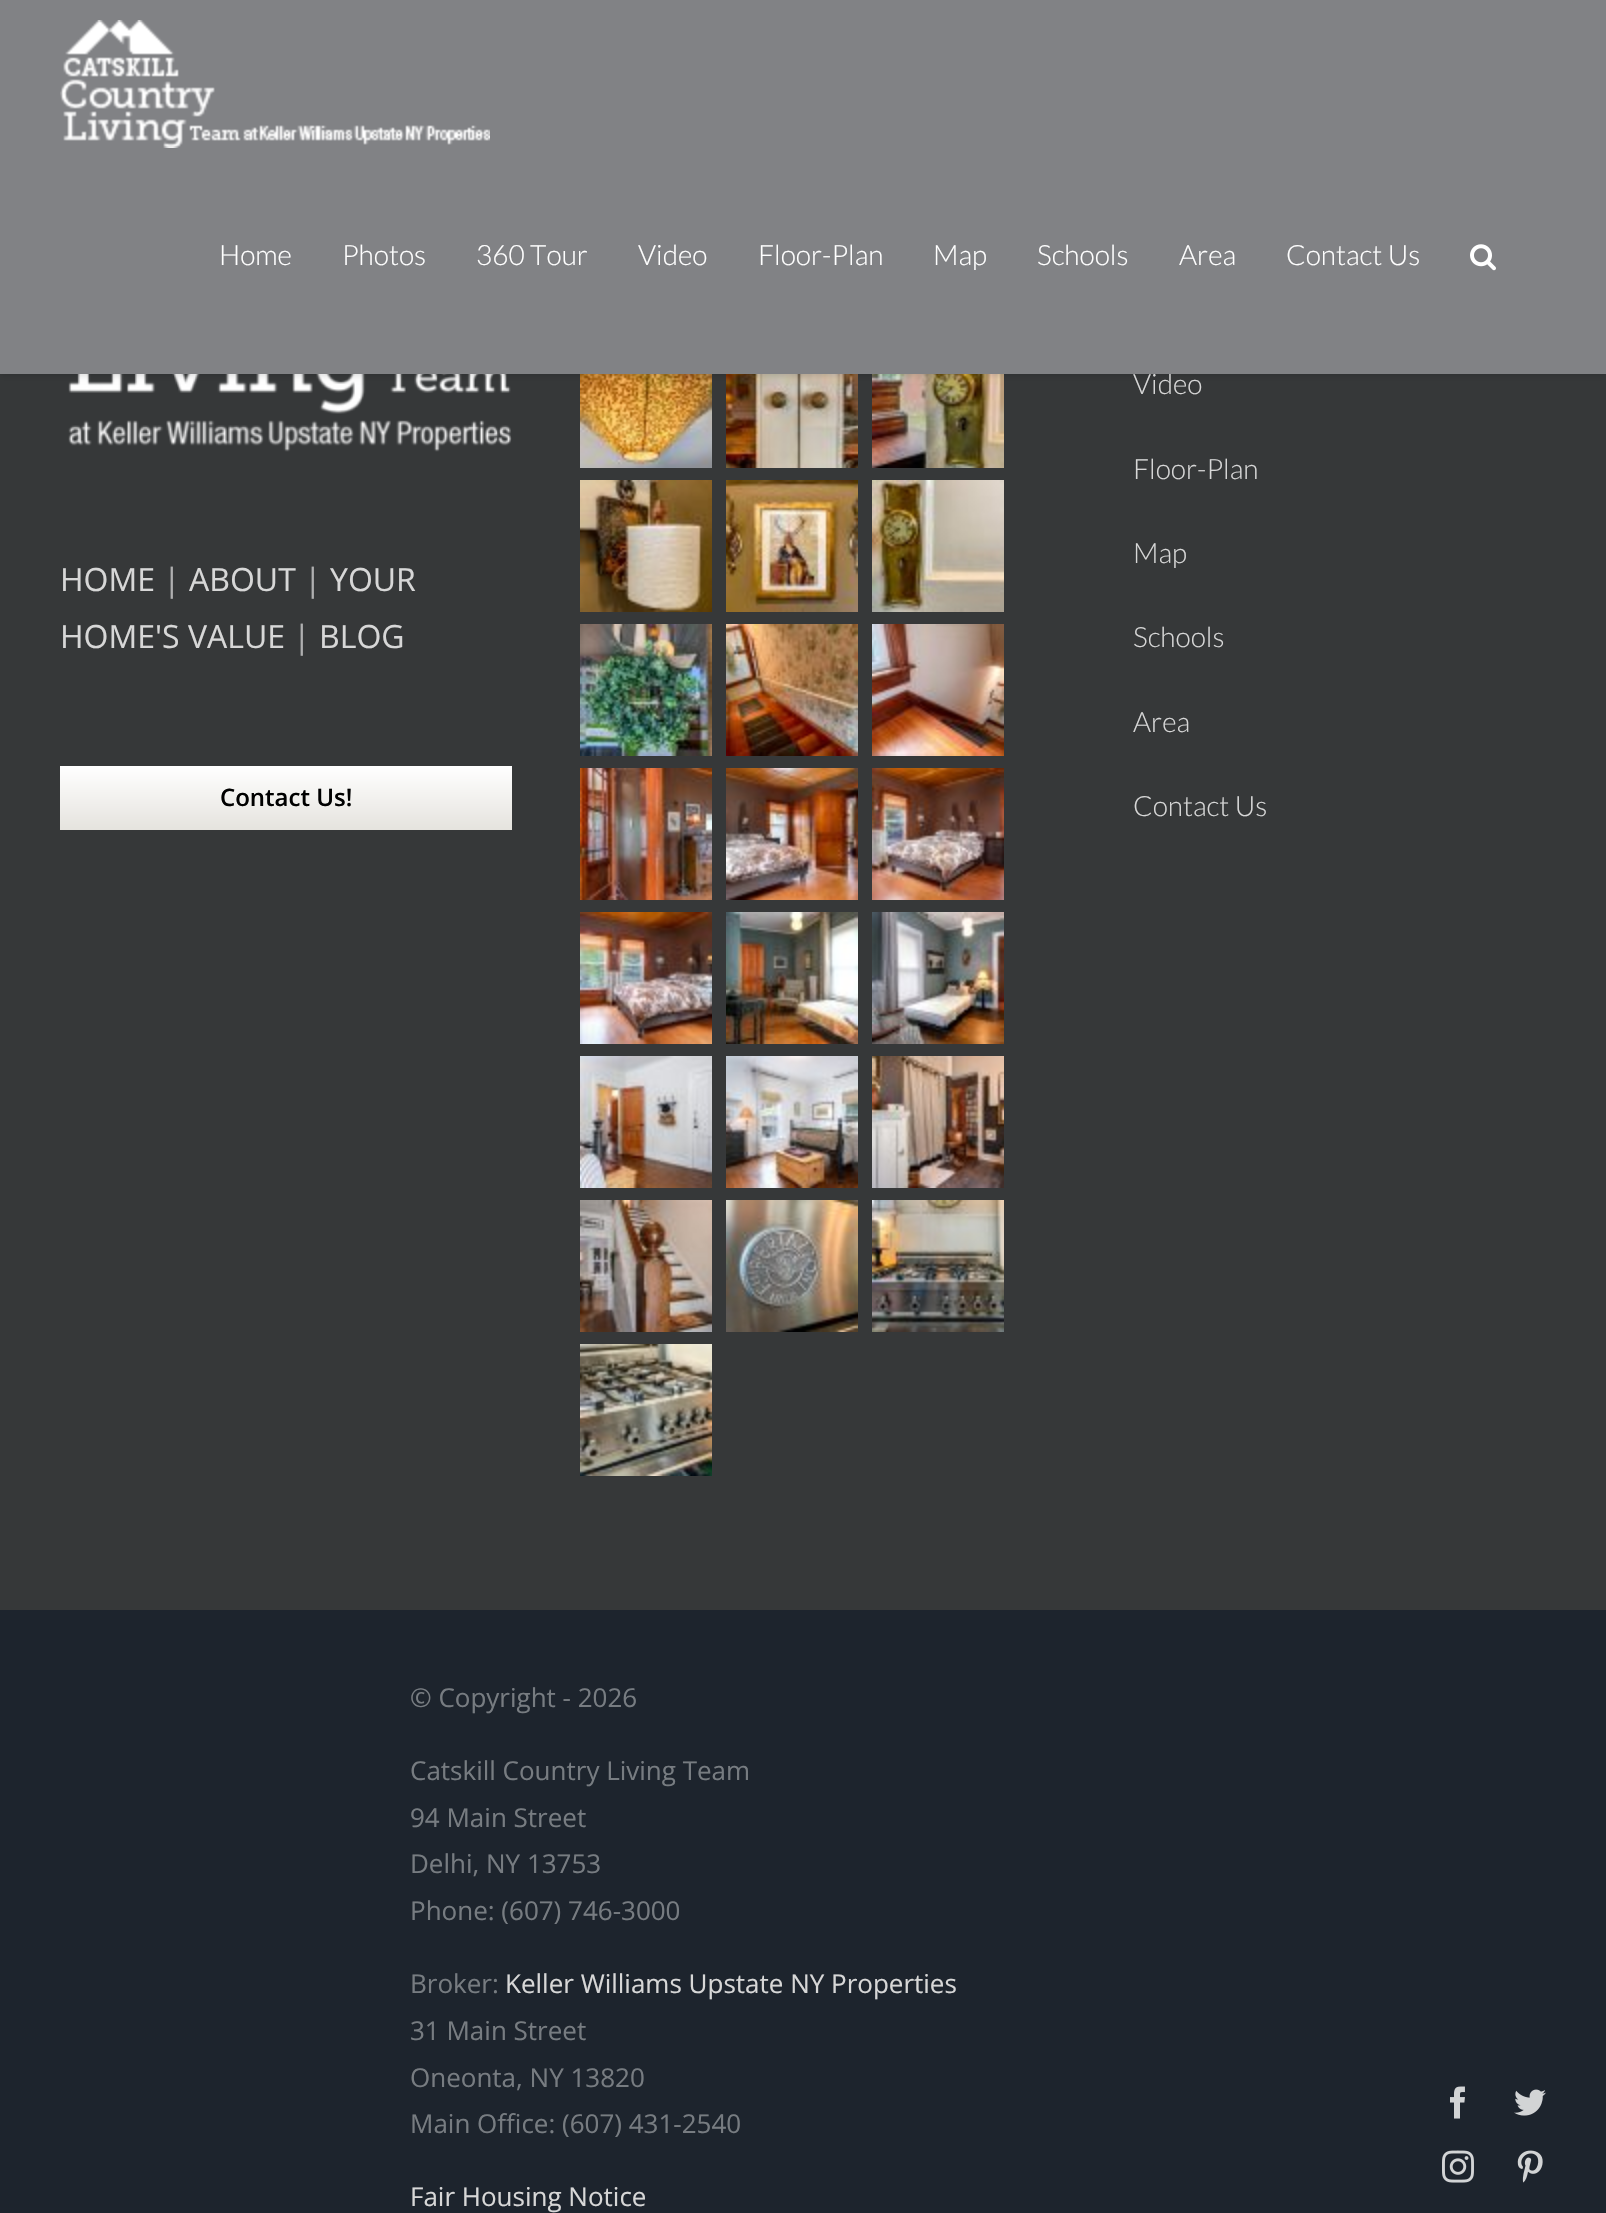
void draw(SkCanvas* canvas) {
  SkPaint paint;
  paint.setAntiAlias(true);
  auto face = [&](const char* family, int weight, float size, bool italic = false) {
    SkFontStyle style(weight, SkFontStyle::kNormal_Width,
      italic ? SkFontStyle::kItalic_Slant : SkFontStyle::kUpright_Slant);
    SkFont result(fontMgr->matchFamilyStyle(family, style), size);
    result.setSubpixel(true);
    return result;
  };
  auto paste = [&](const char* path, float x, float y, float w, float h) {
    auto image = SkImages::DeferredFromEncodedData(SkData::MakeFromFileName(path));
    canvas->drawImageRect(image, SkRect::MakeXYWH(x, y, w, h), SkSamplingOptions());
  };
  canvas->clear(0xff363839);
  paste("img/3.png", 68, 374, 444, 78);
  paste("img/4.png", 580, 374, 132, 94);
  paste("img/5.png", 726, 374, 132, 94);
  paste("img/6.png", 872, 374, 132, 94);
  paint.setColor(0x1f000000);
  paint.setMaskFilter(SkMaskFilter::MakeBlur(kNormal_SkBlurStyle, 3));
  canvas->drawRect(SkRect::MakeXYWH(0, 2, 1606, 374), paint);
  paint.setMaskFilter(nullptr);
  {
    const SkColor colors[] = {0xffffffff, 0xffe5e3de};
    const float stops[] = {0, 1};
    const SkPoint ends[] = {{286, 766}, {286, 830}};
    paint.setShader(SkGradientShader::MakeLinear(ends, colors, stops, 2, SkTileMode::kClamp));
    paint.setAlpha(255);
  }
  canvas->drawRect(SkRect::MakeXYWH(60, 766, 452, 64), paint);
  paste("img/7.png", 580, 480, 132, 132);
  paste("img/8.png", 726, 480, 132, 132);
  paste("img/9.png", 872, 480, 132, 132);
  paste("img/10.png", 580, 624, 132, 132);
  paste("img/11.png", 726, 624, 132, 132);
  paste("img/12.png", 872, 624, 132, 132);
  paste("img/13.png", 580, 768, 132, 132);
  paste("img/14.png", 726, 768, 132, 132);
  paste("img/15.png", 872, 768, 132, 132);
  paste("img/16.png", 580, 912, 132, 132);
  paste("img/17.png", 726, 912, 132, 132);
  paste("img/18.png", 872, 912, 132, 132);
  paste("img/19.png", 580, 1056, 132, 132);
  paste("img/20.png", 726, 1056, 132, 132);
  paste("img/21.png", 872, 1056, 132, 132);
  paste("img/22.png", 580, 1200, 132, 132);
  paste("img/23.png", 726, 1200, 132, 132);
  paste("img/24.png", 872, 1200, 132, 132);
  paste("img/25.png", 580, 1344, 132, 132);
  paint.setShader(nullptr);
  paint.setColor(0xff1d242d);
  canvas->drawRect(SkRect::MakeXYWH(0, 1610, 1606, 603), paint);
  paste("img/26.png", 1450, 2086, 15, 33);
  paste("img/27.png", 1514, 2089, 32, 27);
  paste("img/28.png", 1442, 2150, 32, 33);
  paste("img/29.png", 1517, 2150, 26, 33);
  auto f0 = face("Open Sans", 400, 32);
  paint.setColor(0xffd7d7d7);
  canvas->drawString("HOME", 60, 591, f0, paint);
  paint.setColor(0xffafafb0);
  canvas->drawString("|", 163, 591, f0, paint);
  paint.setColor(0xffd7d7d7);
  canvas->drawString("ABOUT", 189, 591, f0, paint);
  paint.setColor(0xffafafb0);
  canvas->drawString("|", 304, 591, f0, paint);
  paint.setColor(0xffd7d7d7);
  canvas->drawString("YOUR", 330, 591, f0, paint);
  canvas->drawString("HOME'S VALUE", 60, 648, f0, paint);
  paint.setColor(0xffafafb0);
  canvas->drawString("|", 293, 648, f0, paint);
  paint.setColor(0xffd7d7d7);
  canvas->drawString("BLOG", 319, 648, f0, paint);
  auto f1 = face("Open Sans", 600, 24);
  paint.setColor(0xff000000);
  canvas->drawString("Contact Us!", 220, 806, f1, paint);
  auto f2 = face("Lato", 300, 28);
  paint.setColor(0xffd7d7d7);
  canvas->drawString("Video", 1133, 394, f2, paint);
  paint.setColor(0xff818285);
  canvas->drawRect(SkRect::MakeXYWH(0, 0, 1606, 374), paint);
  paste("img/2.png", 1470, 244, 26, 27);
  paint.setColor(0xffffffff);
  {
    const struct { const char* s; float x, y; } items[] = {
      {"Contact Us", 1286, 265},
      {"Area", 1179, 265},
      {"Schools", 1037, 265},
      {"Map", 933, 265},
      {"Floor-Plan", 758, 265},
      {"Video", 638, 265},
      {"360 Tour", 476, 265},
      {"Photos", 342, 265},
      {"Home", 219, 265},
    };
    for (auto [s, x, y] : items) {
      canvas->drawString(s, x, y, f2, paint);
    }
  }
  paste("img/1.png", 60, 20, 430, 128);
  paint.setColor(0xffd7d7d7);
  {
    const struct { const char* s; float x, y; } items[] = {
      {"Floor-Plan", 1133, 479},
      {"Map", 1133, 563},
      {"Schools", 1133, 647},
      {"Area", 1133, 732},
      {"Contact Us", 1133, 816},
    };
    for (auto [s, x, y] : items) {
      canvas->drawString(s, x, y, f2, paint);
    }
  }
  auto f3 = face("Open Sans", 400, 26);
  paint.setColor(0xff777c81);
  {
    const struct { const char* s; float x, y; } items[] = {
      {"© Copyright - 2026", 410, 1707},
      {"Catskill Country Living Team", 410, 1780},
      {"94 Main Street", 410, 1827},
      {"Delhi, NY 13753", 410, 1873},
      {"Phone: (607) 746-3000", 410, 1920},
      {"Broker:", 410, 1993},
    };
    for (auto [s, x, y] : items) {
      canvas->drawString(s, x, y, f3, paint);
    }
  }
  paint.setColor(0xffd7d7d7);
  canvas->drawString("Keller Williams Upstate NY Properties", 505, 1993, f3, paint);
  paint.setColor(0xff777c81);
  {
    const struct { const char* s; float x, y; } items[] = {
      {"31 Main Street", 410, 2040},
      {"Oneonta, NY 13820", 410, 2087},
      {"Main Office: (607) 431-2540", 410, 2133},
    };
    for (auto [s, x, y] : items) {
      canvas->drawString(s, x, y, f3, paint);
    }
  }
  paint.setColor(0xffd7d7d7);
  canvas->drawString("Fair Housing Notice", 410, 2206, f3, paint);
}
